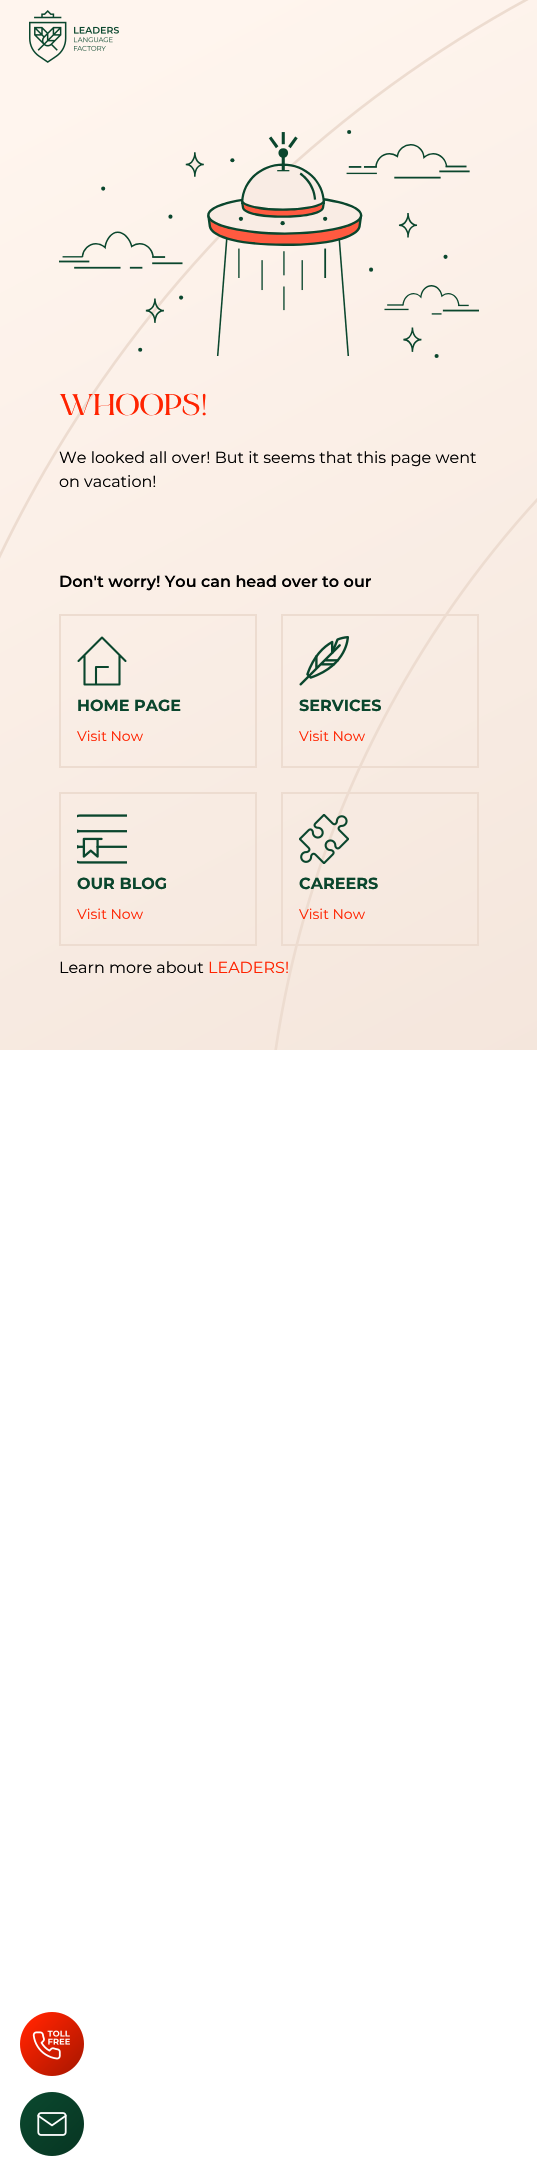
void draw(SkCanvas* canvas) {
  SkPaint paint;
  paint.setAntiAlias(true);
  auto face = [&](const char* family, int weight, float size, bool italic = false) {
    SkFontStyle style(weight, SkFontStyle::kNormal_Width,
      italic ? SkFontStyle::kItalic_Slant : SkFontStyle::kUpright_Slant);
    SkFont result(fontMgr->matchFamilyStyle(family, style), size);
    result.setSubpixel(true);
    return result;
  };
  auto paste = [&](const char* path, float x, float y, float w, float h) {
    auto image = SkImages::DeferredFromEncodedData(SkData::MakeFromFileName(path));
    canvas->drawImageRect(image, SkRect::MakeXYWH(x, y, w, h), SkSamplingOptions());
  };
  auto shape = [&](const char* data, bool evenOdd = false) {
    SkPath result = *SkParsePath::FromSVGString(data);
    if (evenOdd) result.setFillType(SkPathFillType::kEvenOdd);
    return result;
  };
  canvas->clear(0xffffffff);
  paste("img/2.png", 0, 0, 537, 1050);
  paste("img/1.png", 29, 10, 90, 53);
  paste("img/3.png", 59, 130, 420, 228);
  paint.setStroke(true);
  paint.setStrokeWidth(2);
  paint.setColor(0xffeddcd0);
  canvas->drawRect(SkRect::MakeXYWH(60, 615, 196, 152), paint);
  paint.setStrokeWidth(2.1f);
  paint.setStrokeCap(SkPaint::kRound_Cap);
  paint.setStrokeJoin(SkPaint::kRound_Join);
  paint.setColor(0xff0a462d);
  canvas->drawPath(shape("M78.5 661L102 637.5L125.5 661M84.5 655V684.5H119.5V655M96 684.5V667H108"), paint);
  paint.setStrokeWidth(2);
  paint.setStrokeCap(SkPaint::kButt_Cap);
  paint.setStrokeJoin(SkPaint::kMiter_Join);
  paint.setColor(0xffeddcd0);
  canvas->drawRect(SkRect::MakeXYWH(282, 615, 196, 152), paint);
  paste("img/4.png", 299, 636, 50, 50);
  canvas->drawRect(SkRect::MakeXYWH(60, 793, 196, 152), paint);
  paste("img/5.png", 77, 814, 50, 50);
  canvas->drawRect(SkRect::MakeXYWH(282, 793, 196, 152), paint);
  paste("img/6.png", 299, 814, 50, 50);
  paste("img/7.png", 20, 2012, 64, 64);
  paste("img/8.png", 20, 2092, 64, 64);
  auto f0 = face("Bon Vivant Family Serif", 700, 30);
  paint.setStroke(false);
  paint.setColor(0xffff2300);
  canvas->drawString("WHOOPS!", 59, 415, f0, paint);
  auto f1 = face("Montserrat", 400, 16);
  paint.setColor(0xff000000);
  canvas->drawString("We looked all over! But it seems that this page went", 59, 463, f1, paint);
  canvas->drawString("on vacation!", 59, 487, f1, paint);
  auto f2 = face("Montserrat", 600, 16);
  canvas->drawString("Don't worry! You can head over to our", 59, 587, f2, paint);
  auto f3 = face("Montserrat", 700, 16);
  paint.setColor(0xff0a462d);
  canvas->drawString("HOME PAGE", 77, 711, f3, paint);
  auto f4 = face("Montserrat", 400, 14);
  paint.setColor(0xffff2300);
  canvas->drawString("Visit Now", 77, 741, f4, paint);
  paint.setColor(0xff0a462d);
  canvas->drawString("SERVICES", 299, 711, f3, paint);
  paint.setColor(0xffff2300);
  canvas->drawString("Visit Now", 299, 741, f4, paint);
  paint.setColor(0xff0a462d);
  canvas->drawString("OUR BLOG", 77, 889, f3, paint);
  paint.setColor(0xffff2300);
  canvas->drawString("Visit Now", 77, 919, f4, paint);
  paint.setColor(0xff0a462d);
  canvas->drawString("CAREERS", 299, 889, f3, paint);
  paint.setColor(0xffff2300);
  canvas->drawString("Visit Now", 299, 919, f4, paint);
  paint.setColor(0xff000000);
  canvas->drawString("Learn more about", 59, 973, f1, paint);
  paint.setColor(0xffff2300);
  canvas->drawString("LEADERS!", 208, 973, f1, paint);
}
